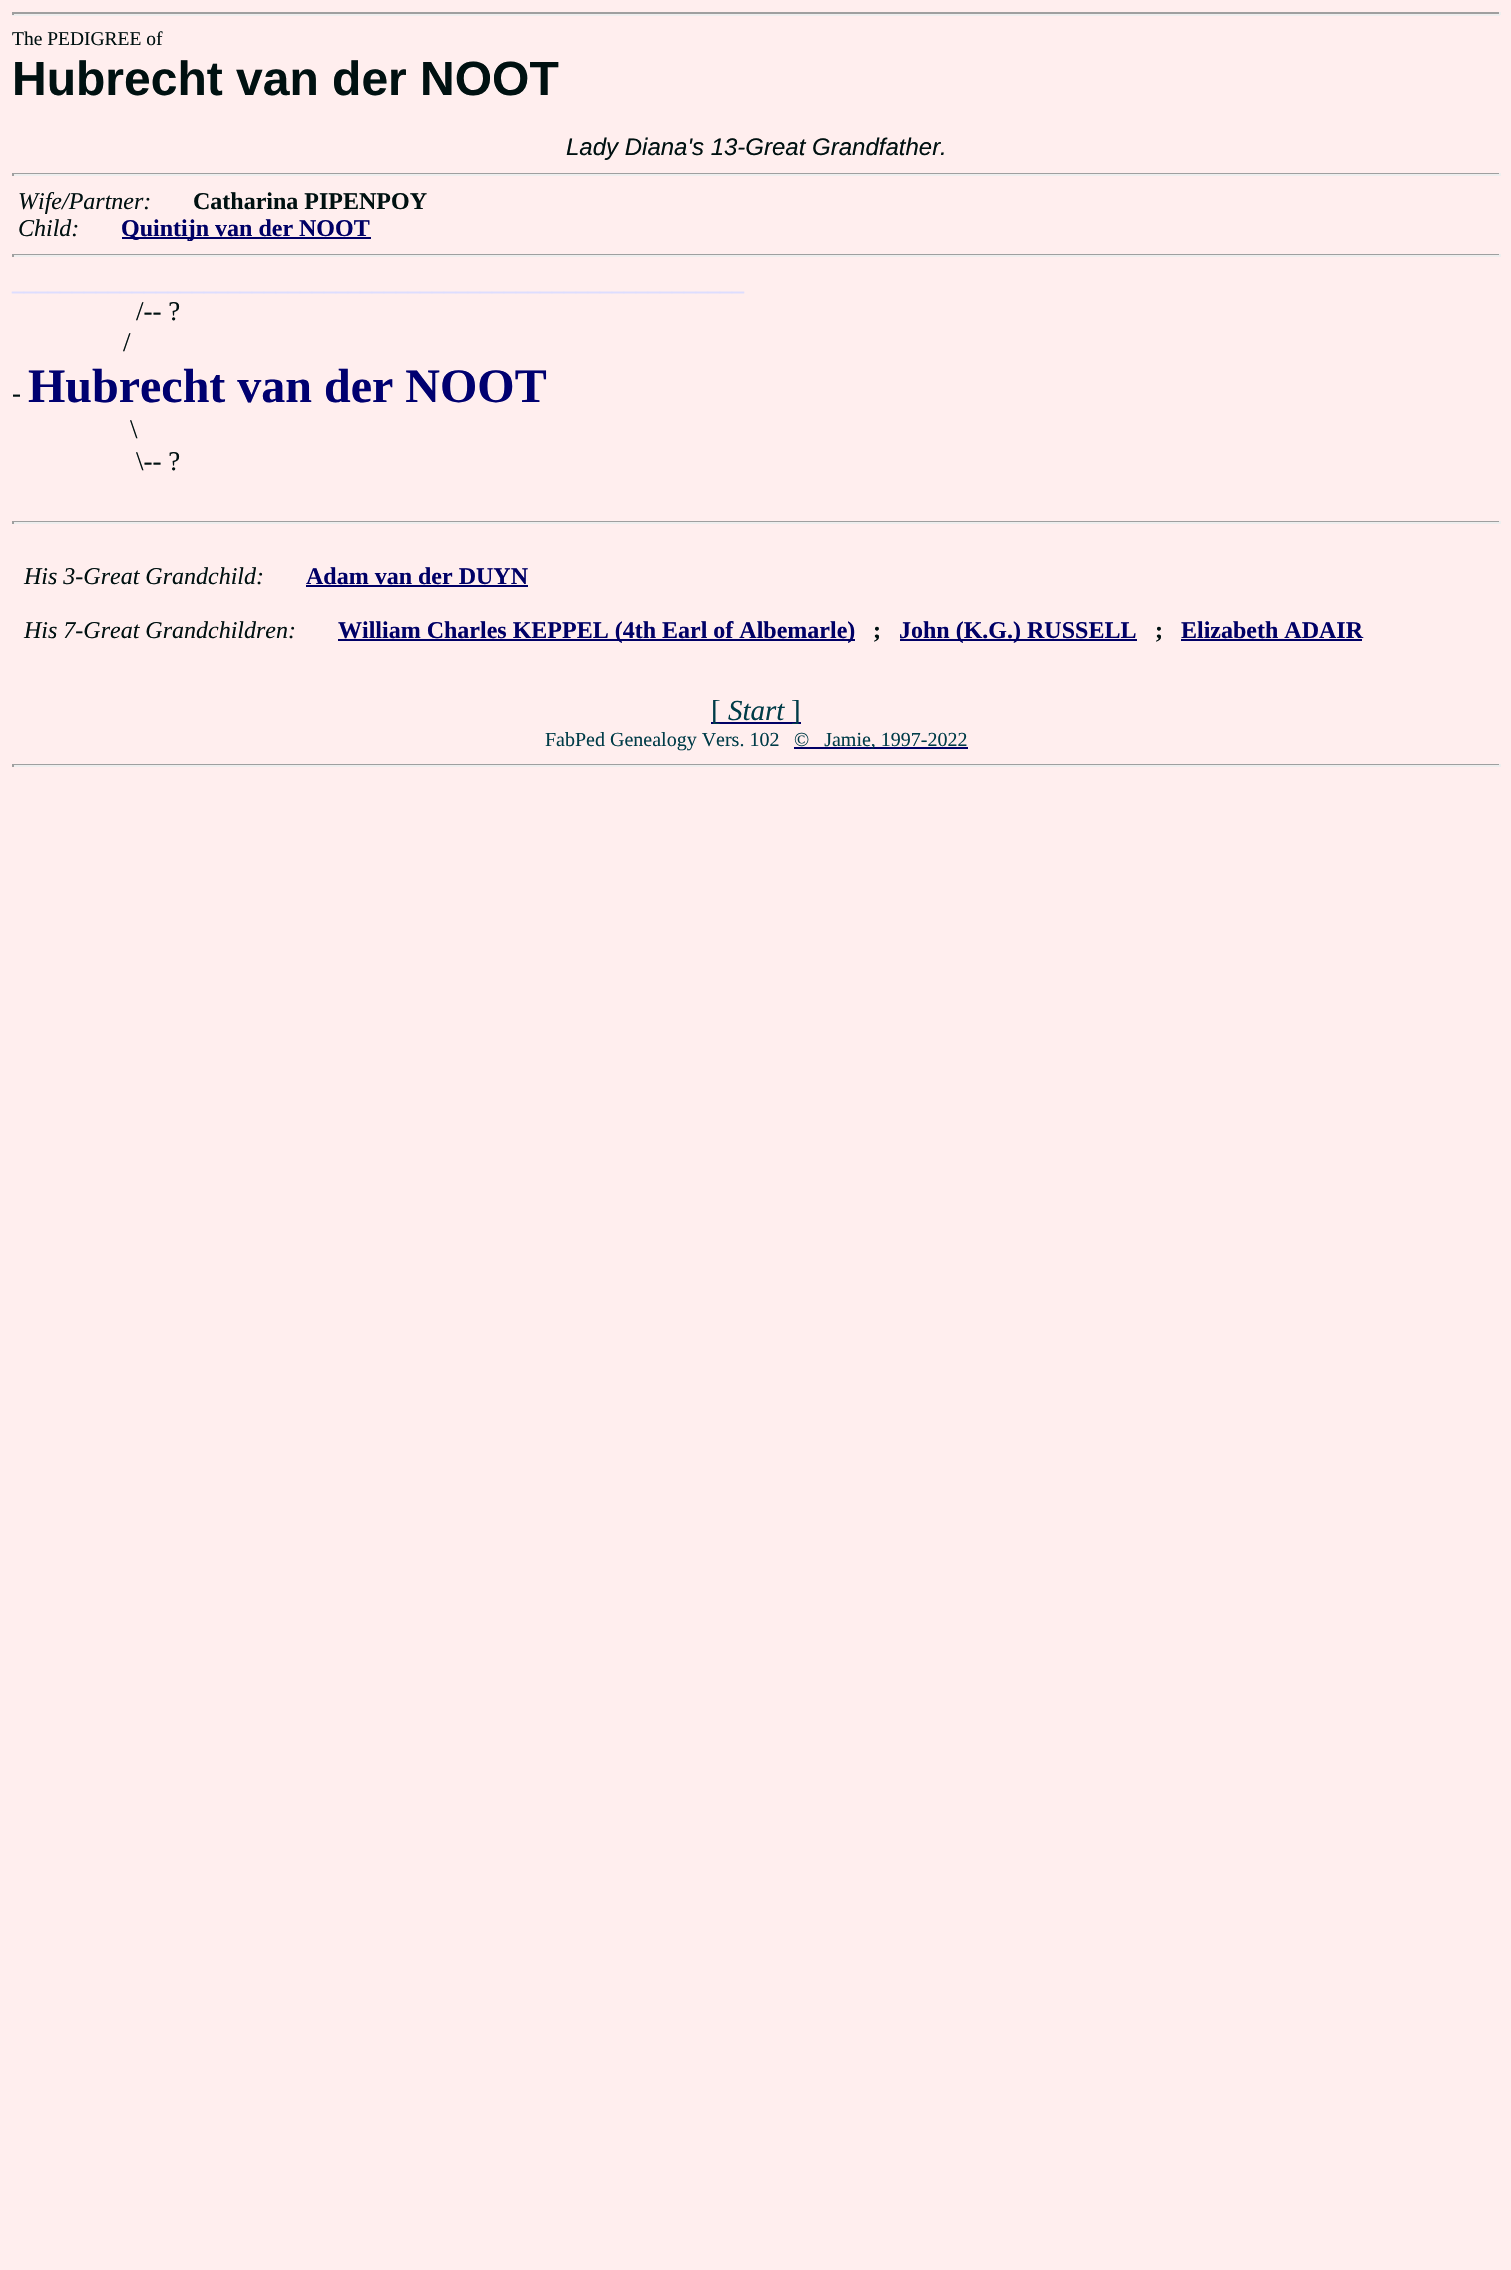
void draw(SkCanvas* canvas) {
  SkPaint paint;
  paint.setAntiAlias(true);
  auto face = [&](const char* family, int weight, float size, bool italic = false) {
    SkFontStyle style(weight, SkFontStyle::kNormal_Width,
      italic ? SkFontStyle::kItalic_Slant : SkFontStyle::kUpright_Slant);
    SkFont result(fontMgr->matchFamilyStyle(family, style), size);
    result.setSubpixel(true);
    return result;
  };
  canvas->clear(0xffffeeee);
  {
    const struct { float x, y, w, h; SkColor color; } items[] = {
      {12, 12, 1488, 2, 0xff9f9f9f},
      {1499, 12, 2, 3, 0xffeeeeee},
      {12, 14, 1488, 2, 0xffeeeeee},
      {12, 12, 2, 3, 0xff9f9f9f},
      {12, 173, 1488, 1, 0xff9f9f9f},
      {1499, 173, 2, 3, 0xffeeeeee},
      {12, 174, 1488, 2, 0xffeeeeee},
      {12, 173, 2, 3, 0xff9f9f9f},
      {122, 237, 249, 2, 0xff000066},
      {12, 254, 1488, 1, 0xff9f9f9f},
      {1499, 254, 2, 3, 0xffeeeeee},
      {12, 255, 1488, 2, 0xffeeeeee},
      {12, 254, 2, 3, 0xff9f9f9f},
      {12, 521, 1488, 1, 0xff9f9f9f},
      {1499, 521, 2, 3, 0xffeeeeee},
      {12, 522, 1488, 2, 0xffeeeeee},
      {12, 521, 2, 3, 0xff9f9f9f},
      {306, 585, 222, 2, 0xff000066},
      {338, 639, 517, 2, 0xff000066},
      {900, 639, 237, 2, 0xff000066},
      {1181, 639, 181, 2, 0xff000066},
      {711, 722, 90, 2, 0xff000066},
      {794, 747, 174, 2, 0xff000066},
      {12, 764, 1488, 1, 0xff9f9f9f},
      {1499, 764, 2, 3, 0xffeeeeee},
      {12, 765, 1488, 2, 0xffeeeeee},
      {12, 764, 2, 3, 0xff9f9f9f},
    };
    for (auto [x, y, w, h, color] : items) {
      paint.setColor(color);
      canvas->drawRect(SkRect::MakeXYWH(x, y, w, h), paint);
    }
  }
  auto f0 = face("Liberation Serif", 400, 19.5f);
  paint.setColor(0xff001111);
  canvas->drawString("The PEDIGREE of", 12, 45, f0, paint);
  auto f1 = face("Liberation Sans", 700, 48);
  canvas->drawString("Hubrecht van der NOOT", 12, 95, f1, paint);
  auto f2 = face("Liberation Sans", 400, 24, true);
  canvas->drawString("Lady Diana's 13-Great Grandfather.", 566, 155, f2, paint);
  auto f3 = face("Liberation Serif", 400, 24, true);
  canvas->drawString("Wife/Partner:", 18, 209, f3, paint);
  auto f4 = face("Liberation Serif", 700, 24);
  canvas->drawString("Catharina PIPENPOY", 193, 209, f4, paint);
  canvas->drawString("Child:", 18, 236, f3, paint);
  paint.setColor(0xff000066);
  canvas->drawString("Quintijn van der NOOT", 121, 236, f4, paint);
  paint.setColor(0xffddddff);
  canvas->drawString("_____________________________________________________________", 12, 290, f4, paint);
  auto f5 = face("Liberation Serif", 400, 27);
  paint.setColor(0xff001111);
  {
    const struct { const char* s; float x, y; } items[] = {
      {"/-- ?", 136, 320},
      {"/", 123, 351},
      {"-", 12, 402},
    };
    for (auto [s, x, y] : items) {
      canvas->drawString(s, x, y, f5, paint);
    }
  }
  auto f6 = face("Liberation Serif", 700, 48);
  paint.setColor(0xff000070);
  canvas->drawString("Hubrecht van der NOOT", 28, 402, f6, paint);
  paint.setColor(0xff001111);
  canvas->drawString("\\", 130, 438, f5, paint);
  canvas->drawString("\\-- ?", 136, 470, f5, paint);
  canvas->drawString("His 3-Great Grandchild:", 24, 584, f3, paint);
  paint.setColor(0xff000066);
  canvas->drawString("Adam van der DUYN", 306, 584, f4, paint);
  paint.setColor(0xff001111);
  canvas->drawString("His 7-Great Grandchildren:", 24, 638, f3, paint);
  paint.setColor(0xff000066);
  canvas->drawString("William Charles KEPPEL (4th Earl of Albemarle)", 338, 638, f4, paint);
  paint.setColor(0xff001111);
  canvas->drawString(";", 873, 638, f4, paint);
  paint.setColor(0xff000066);
  canvas->drawString("John (K.G.) RUSSELL", 899, 638, f4, paint);
  paint.setColor(0xff001111);
  canvas->drawString(";", 1155, 638, f4, paint);
  paint.setColor(0xff000066);
  canvas->drawString("Elizabeth ADAIR", 1181, 638, f4, paint);
  auto f7 = face("Liberation Serif", 400, 29);
  paint.setColor(0xff003c48);
  canvas->drawString("[", 711, 720, f7, paint);
  auto f8 = face("Liberation Serif", 400, 29, true);
  canvas->drawString("Start", 728, 720, f8, paint);
  canvas->drawString("]", 791, 720, f7, paint);
  auto f9 = face("Liberation Serif", 400, 20);
  canvas->drawString("FabPed Genealogy Vers. 102", 545, 746, f9, paint);
  canvas->drawString("©   Jamie, 1997-2022", 794, 746, f9, paint);
}
